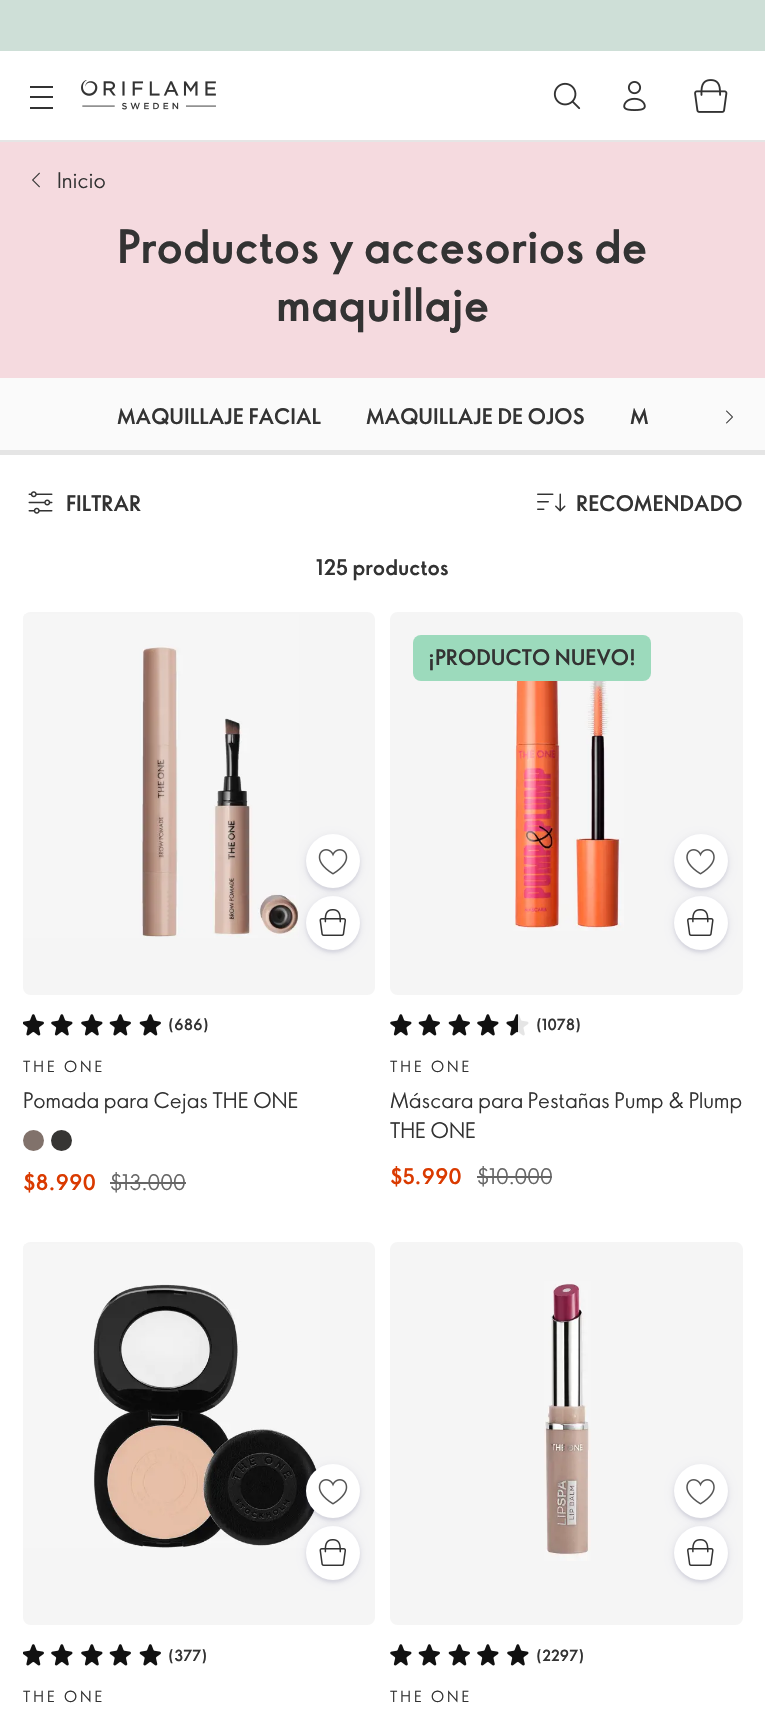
void draw(SkCanvas* canvas) {
  SkPaint paint;
  paint.setAntiAlias(true);
  auto face = [&](const char* family, int weight, float size, bool italic = false) {
    SkFontStyle style(weight, SkFontStyle::kNormal_Width,
      italic ? SkFontStyle::kItalic_Slant : SkFontStyle::kUpright_Slant);
    SkFont result(fontMgr->matchFamilyStyle(family, style), size);
    result.setSubpixel(true);
    return result;
  };
  auto writeSpaced = [&](const char* s, float x, float y, const SkFont& font, const SkPaint& ink, float letter, float word) {
    std::vector<SkGlyphID> glyphs(font.countText(s, strlen(s), SkTextEncoding::kUTF8));
    std::vector<float> xs(glyphs.size());
    font.textToGlyphs(s, strlen(s), SkTextEncoding::kUTF8, glyphs);
    font.getXPos(glyphs, xs, x);
    float extra = 0;
    for (size_t i = 0; i < glyphs.size(); i++) {
      xs[i] += extra;
      extra += letter + word * (glyphs[i] == font.unicharToGlyph(' '));
    }
    canvas->drawTextBlob(SkTextBlob::MakeFromPosHGlyphs(glyphs, xs, y, font), 0, 0, ink);
  };
  auto paste = [&](const char* path, float x, float y, float w, float h) {
    auto image = SkImages::DeferredFromEncodedData(SkData::MakeFromFileName(path));
    canvas->drawImageRect(image, SkRect::MakeXYWH(x, y, w, h), SkSamplingOptions());
  };
  auto shape = [&](const char* data, bool evenOdd = false) {
    SkPath result = *SkParsePath::FromSVGString(data);
    if (evenOdd) result.setFillType(SkPathFillType::kEvenOdd);
    return result;
  };
  canvas->clear(0xffffffff);
  {
    const struct { float x, y, w, h; SkColor color; } items[] = {
      {0, 140, 765, 2, 0xffe5e5e5},
      {0, 0, 765, 51, 0xffcedfd7},
      {30, 86, 23, 2, 0xff333333},
      {30, 96, 23, 2, 0xff333333},
      {30, 107, 23, 2, 0xff333333},
    };
    for (auto [x, y, w, h, color] : items) {
      paint.setColor(color);
      canvas->drawRect(SkRect::MakeXYWH(x, y, w, h), paint);
    }
  }
  paste("img/1.png", 81, 80, 135, 30);
  paste("img/2.png", 553, 82, 28, 28);
  paste("img/3.png", 623, 81, 23, 30);
  paste("img/4.png", 694, 79, 34, 34);
  paint.setColor(0xfff5dadf);
  canvas->drawRect(SkRect::MakeXYWH(0, 142, 765, 236), paint);
  paste("img/5.png", 32, 172, 8, 16);
  paint.setColor(0xfffafafa);
  canvas->drawRect(SkRect::MakeXYWH(0, 378, 765, 72), paint);
  paste("img/6.png", 726, 410, 7, 14);
  paint.setColor(0xffe5e5e5);
  canvas->drawRect(SkRect::MakeXYWH(0, 450, 765, 5), paint);
  paste("img/7.png", 28, 491, 25, 23);
  paste("img/8.png", 537, 493, 29, 19);
  paint.setColor(0xfff5f5f5);
  canvas->drawPath(shape("M31 612H367C371.5 612 375 615.5 375 620V965H23V620C23 615.5 26.5 612 31 612Z"), paint);
  paste("img/9.png", 23, 614, 276, 324);
  paint.setColor(0x14000042);
  paint.setMaskFilter(SkMaskFilter::MakeBlur(kNormal_SkBlurStyle, 4));
  canvas->drawRoundRect(SkRect::MakeXYWH(306, 897, 54, 54), 27, 27, paint);
  paint.setMaskFilter(nullptr);
  paint.setMaskFilter(SkMaskFilter::MakeBlur(kNormal_SkBlurStyle, 1.5f));
  canvas->drawRoundRect(SkRect::MakeXYWH(306, 899, 54, 54), 27, 27, paint);
  paint.setMaskFilter(nullptr);
  paint.setColor(0xffffffff);
  canvas->drawCircle(333, 923, 27, paint);
  paint.setColor(0x14000042);
  paint.setMaskFilter(SkMaskFilter::MakeBlur(kNormal_SkBlurStyle, 4));
  canvas->drawRoundRect(SkRect::MakeXYWH(306, 836, 54, 54), 27, 27, paint);
  paint.setMaskFilter(nullptr);
  paint.setMaskFilter(SkMaskFilter::MakeBlur(kNormal_SkBlurStyle, 1.5f));
  canvas->drawRoundRect(SkRect::MakeXYWH(306, 837, 54, 54), 27, 27, paint);
  paint.setMaskFilter(nullptr);
  paint.setColor(0xffffffff);
  canvas->drawCircle(333, 861, 27, paint);
  paste("img/10.png", 318, 849, 30, 26);
  paste("img/11.png", 319, 909, 27, 27);
  paint.setColor(0xfff5f5f5);
  canvas->drawPath(shape("M23 965H375V987C375 991.5 371.5 995 367 995H31C26.5 995 23 991.5 23 987Z"), paint);
  paste("img/12.png", 23, 1014, 21, 22);
  paste("img/13.png", 51, 1014, 22, 22);
  paste("img/13.png", 81, 1014, 22, 22);
  paste("img/14.png", 109, 1014, 22, 22);
  paste("img/14.png", 139, 1014, 22, 22);
  paint.setColor(0xff81726b);
  canvas->drawCircle(33.5f, 1140.5f, 10.5f, paint);
  paint.setColor(0xff363533);
  canvas->drawCircle(61.5f, 1140.5f, 10.5f, paint);
  paint.setColor(0xff666666);
  canvas->drawRect(SkRect::MakeXYWH(110, 1182, 76, 2), paint);
  paint.setColor(0xfff5f5f5);
  canvas->drawPath(shape("M398 612H735C739.5 612 743 615.5 743 620V965H390V620C390 615.5 393.5 612 398 612Z"), paint);
  paint.setColor(0xff9cdabc);
  canvas->drawRoundRect(SkRect::MakeXYWH(413, 635, 238, 46), 8, 8, paint);
  paste("img/15.png", 513, 681, 111, 250);
  paint.setColor(0x14000042);
  paint.setMaskFilter(SkMaskFilter::MakeBlur(kNormal_SkBlurStyle, 4));
  canvas->drawRoundRect(SkRect::MakeXYWH(674, 897, 54, 54), 27, 27, paint);
  paint.setMaskFilter(nullptr);
  paint.setMaskFilter(SkMaskFilter::MakeBlur(kNormal_SkBlurStyle, 1.5f));
  canvas->drawRoundRect(SkRect::MakeXYWH(674, 899, 54, 54), 27, 27, paint);
  paint.setMaskFilter(nullptr);
  paint.setColor(0xffffffff);
  canvas->drawCircle(701, 923, 27, paint);
  paint.setColor(0x14000042);
  paint.setMaskFilter(SkMaskFilter::MakeBlur(kNormal_SkBlurStyle, 4));
  canvas->drawRoundRect(SkRect::MakeXYWH(674, 836, 54, 54), 27, 27, paint);
  paint.setMaskFilter(nullptr);
  paint.setMaskFilter(SkMaskFilter::MakeBlur(kNormal_SkBlurStyle, 1.5f));
  canvas->drawRoundRect(SkRect::MakeXYWH(674, 837, 54, 54), 27, 27, paint);
  paint.setMaskFilter(nullptr);
  paint.setColor(0xffffffff);
  canvas->drawCircle(701, 861, 27, paint);
  paste("img/16.png", 686, 849, 29, 26);
  paste("img/17.png", 687, 909, 27, 27);
  paint.setColor(0xfff5f5f5);
  canvas->drawPath(shape("M390 965H743V987C743 991.5 739.5 995 735 995H398C393.5 995 390 991.5 390 987Z"), paint);
  paste("img/13.png", 390, 1014, 22, 22);
  paste("img/14.png", 418, 1014, 22, 22);
  paste("img/14.png", 448, 1014, 22, 22);
  paste("img/13.png", 477, 1014, 22, 22);
  paste("img/19.png", 507, 1014, 22, 22);
  paste("img/18.png", 506, 1014, 12, 22);
  paint.setColor(0xff666666);
  canvas->drawRect(SkRect::MakeXYWH(477, 1176, 75, 2), paint);
  paint.setColor(0xfff5f5f5);
  canvas->drawPath(shape("M31 1242H367C371.5 1242 375 1245.5 375 1250V1595H23V1250C23 1245.5 26.5 1242 31 1242Z"), paint);
  paste("img/20.png", 23, 1244, 297, 304);
  paint.setColor(0x14000042);
  paint.setMaskFilter(SkMaskFilter::MakeBlur(kNormal_SkBlurStyle, 4));
  canvas->drawRoundRect(SkRect::MakeXYWH(306, 1527, 54, 54), 27, 27, paint);
  paint.setMaskFilter(nullptr);
  paint.setMaskFilter(SkMaskFilter::MakeBlur(kNormal_SkBlurStyle, 1.5f));
  canvas->drawRoundRect(SkRect::MakeXYWH(306, 1529, 54, 54), 27, 27, paint);
  paint.setMaskFilter(nullptr);
  paint.setColor(0xffffffff);
  canvas->drawCircle(333, 1553, 27, paint);
  paint.setColor(0x14000042);
  paint.setMaskFilter(SkMaskFilter::MakeBlur(kNormal_SkBlurStyle, 4));
  canvas->drawRoundRect(SkRect::MakeXYWH(306, 1466, 54, 54), 27, 27, paint);
  paint.setMaskFilter(nullptr);
  paint.setMaskFilter(SkMaskFilter::MakeBlur(kNormal_SkBlurStyle, 1.5f));
  canvas->drawRoundRect(SkRect::MakeXYWH(306, 1467, 54, 54), 27, 27, paint);
  paint.setMaskFilter(nullptr);
  paint.setColor(0xffffffff);
  canvas->drawCircle(333, 1491, 27, paint);
  paste("img/10.png", 318, 1479, 30, 26);
  paste("img/11.png", 319, 1539, 27, 27);
  paint.setColor(0xfff5f5f5);
  canvas->drawPath(shape("M23 1595H375V1617C375 1621.5 371.5 1625 367 1625H31C26.5 1625 23 1621.5 23 1617Z"), paint);
  paste("img/12.png", 23, 1644, 21, 22);
  paste("img/13.png", 51, 1644, 22, 22);
  paste("img/13.png", 81, 1644, 22, 22);
  paste("img/14.png", 109, 1644, 22, 22);
  paste("img/14.png", 139, 1644, 22, 22);
  canvas->drawPath(shape("M398 1242H735C739.5 1242 743 1245.5 743 1250V1595H390V1250C390 1245.5 393.5 1242 398 1242Z"), paint);
  paste("img/21.png", 544, 1281, 47, 280);
  paint.setColor(0x14000042);
  paint.setMaskFilter(SkMaskFilter::MakeBlur(kNormal_SkBlurStyle, 4));
  canvas->drawRoundRect(SkRect::MakeXYWH(674, 1527, 54, 54), 27, 27, paint);
  paint.setMaskFilter(nullptr);
  paint.setMaskFilter(SkMaskFilter::MakeBlur(kNormal_SkBlurStyle, 1.5f));
  canvas->drawRoundRect(SkRect::MakeXYWH(674, 1529, 54, 54), 27, 27, paint);
  paint.setMaskFilter(nullptr);
  paint.setColor(0xffffffff);
  canvas->drawCircle(701, 1553, 27, paint);
  paint.setColor(0x14000042);
  paint.setMaskFilter(SkMaskFilter::MakeBlur(kNormal_SkBlurStyle, 4));
  canvas->drawRoundRect(SkRect::MakeXYWH(674, 1466, 54, 54), 27, 27, paint);
  paint.setMaskFilter(nullptr);
  paint.setMaskFilter(SkMaskFilter::MakeBlur(kNormal_SkBlurStyle, 1.5f));
  canvas->drawRoundRect(SkRect::MakeXYWH(674, 1467, 54, 54), 27, 27, paint);
  paint.setMaskFilter(nullptr);
  paint.setColor(0xffffffff);
  canvas->drawCircle(701, 1491, 27, paint);
  paste("img/16.png", 686, 1479, 29, 26);
  paste("img/17.png", 687, 1539, 27, 27);
  paint.setColor(0xfff5f5f5);
  canvas->drawPath(shape("M390 1595H743V1617C743 1621.5 739.5 1625 735 1625H398C393.5 1625 390 1621.5 390 1617Z"), paint);
  paste("img/13.png", 390, 1644, 22, 22);
  paste("img/14.png", 418, 1644, 22, 22);
  paste("img/14.png", 448, 1644, 22, 22);
  paste("img/13.png", 477, 1644, 22, 22);
  paste("img/13.png", 507, 1644, 22, 22);
  auto f0 = face("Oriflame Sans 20", 400, 21);
  paint.setColor(0xff333333);
  canvas->drawString("Inicio", 57, 188, f0, paint);
  auto f1 = face("Oriflame Sans 20", 700, 45);
  canvas->drawString("Productos y accesorios de", 117, 263, f1, paint);
  canvas->drawString("maquillaje", 276, 321, f1, paint);
  auto f2 = face("Oriflame Sans 20", 700, 21);
  {
    const struct { const char* s; float x, y; } items[] = {
      {"MAQUILLAJE FACIAL", 117, 424},
      {"MAQUILLAJE DE OJOS", 366, 424},
      {"M", 630, 424},
      {"FILTRAR", 66, 511},
      {"RECOMENDADO", 576, 511},
      {"125 productos", 316, 575},
    };
    for (auto [s, x, y] : items) {
      canvas->drawString(s, x, y, f2, paint);
    }
  }
  auto f3 = face("Oriflame Sans 20", 700, 15);
  canvas->drawString("(686)", 168, 1030, f3, paint);
  auto f4 = face("Oriflame Sans 20", 400, 15);
  writeSpaced("THE ONE", 23, 1072, f4, paint, 3, 0);
  canvas->drawString("Pomada para Cejas THE ONE", 23, 1108, f0, paint);
  paint.setColor(0xffda3a00);
  canvas->drawString("$8.990", 23, 1190, f2, paint);
  paint.setColor(0xff666666);
  canvas->drawString("$13.000", 110, 1190, f0, paint);
  paint.setColor(0xff333333);
  canvas->drawString("¡PRODUCTO NUEVO!", 428, 665, f2, paint);
  canvas->drawString("(1078)", 536, 1030, f3, paint);
  writeSpaced("THE ONE", 390, 1072, f4, paint, 3, 0);
  canvas->drawString("Máscara para Pestañas Pump & Plump", 390, 1108, f0, paint);
  canvas->drawString("THE ONE", 390, 1138, f0, paint);
  paint.setColor(0xffda3a00);
  canvas->drawString("$5.990", 390, 1184, f2, paint);
  paint.setColor(0xff666666);
  canvas->drawString("$10.000", 477, 1184, f0, paint);
  paint.setColor(0xff333333);
  canvas->drawString("(377)", 168, 1661, f3, paint);
  writeSpaced("THE ONE", 23, 1702, f4, paint, 3, 0);
  canvas->drawString("(2297)", 536, 1661, f3, paint);
  writeSpaced("THE ONE", 390, 1702, f4, paint, 3, 0);
}
